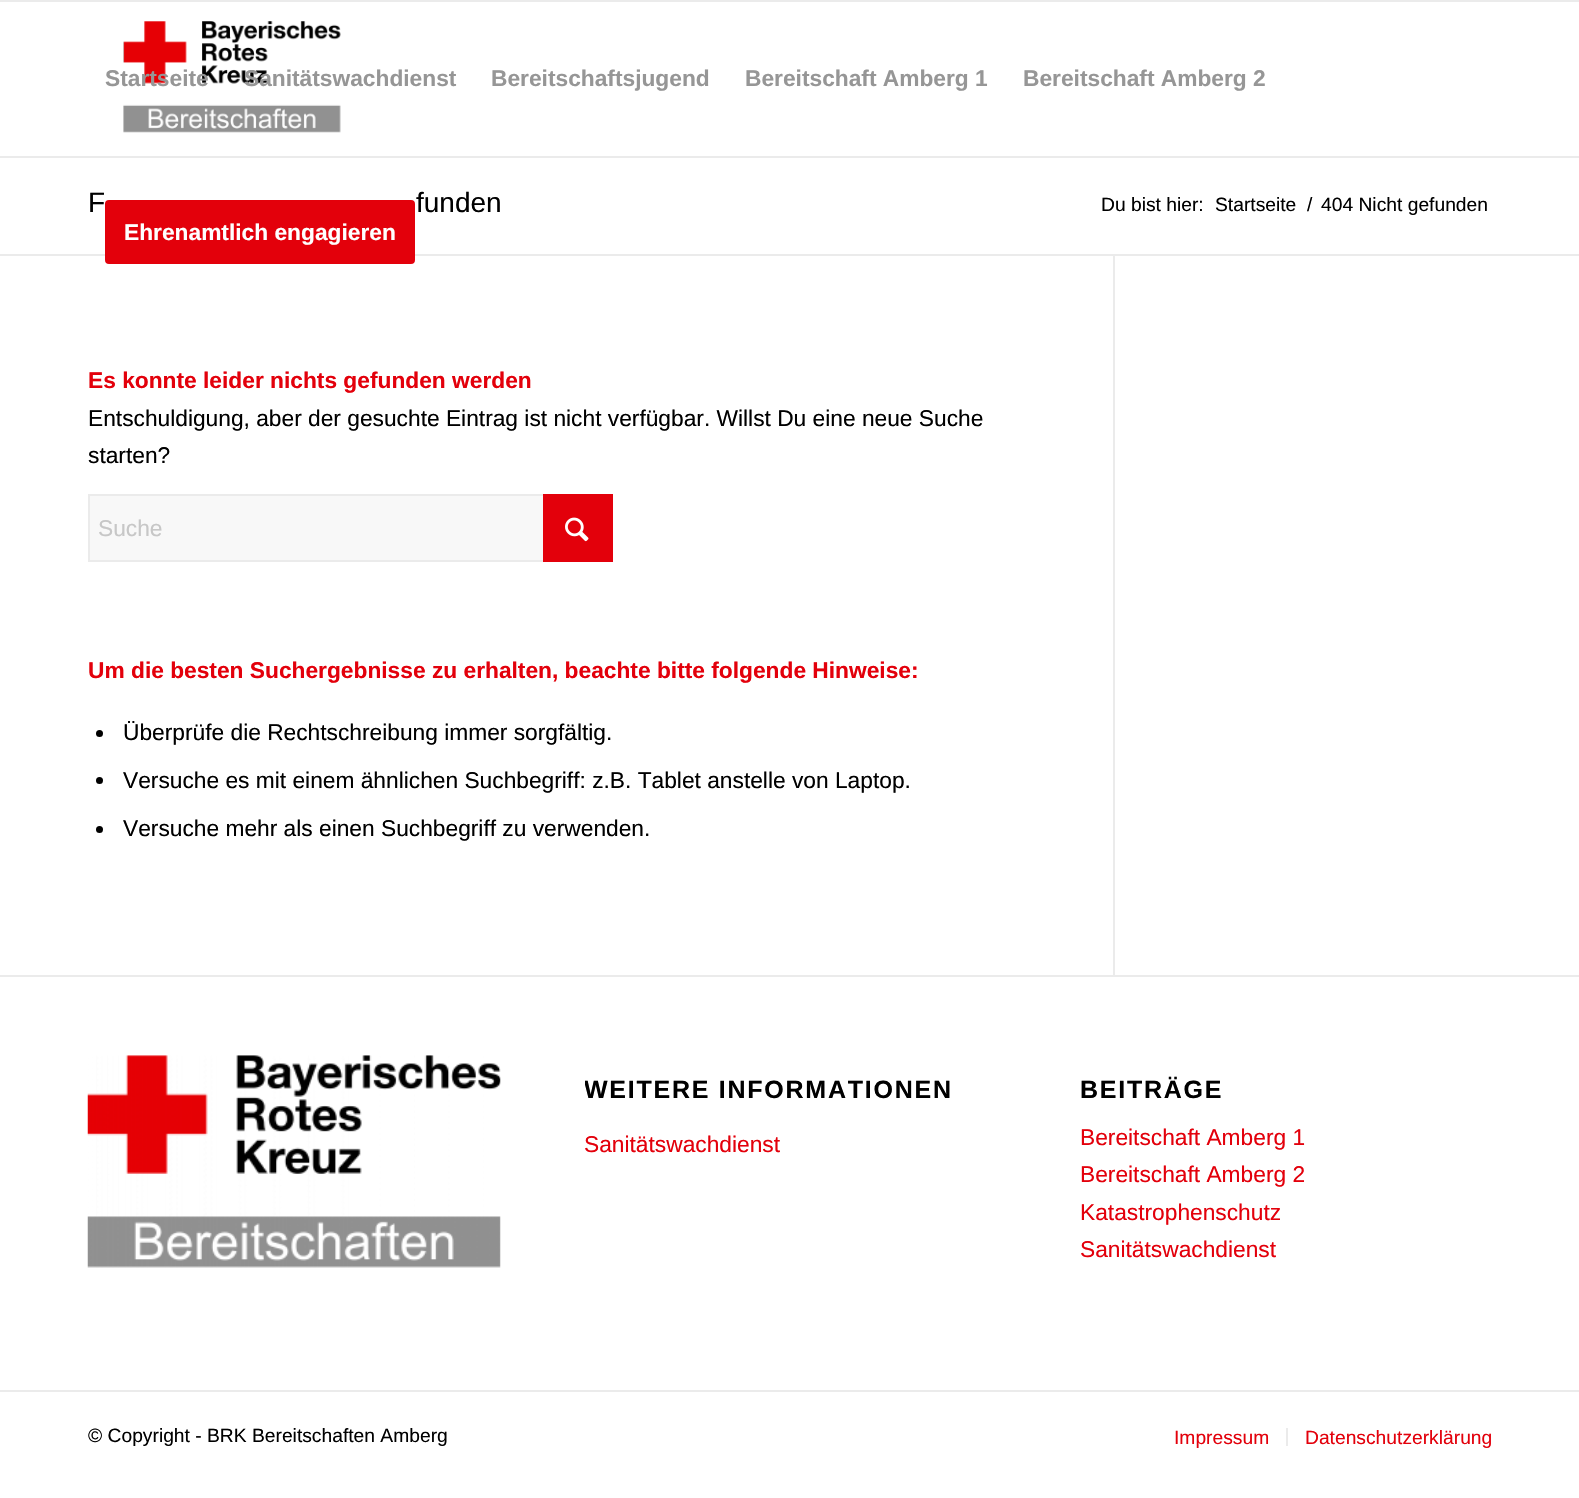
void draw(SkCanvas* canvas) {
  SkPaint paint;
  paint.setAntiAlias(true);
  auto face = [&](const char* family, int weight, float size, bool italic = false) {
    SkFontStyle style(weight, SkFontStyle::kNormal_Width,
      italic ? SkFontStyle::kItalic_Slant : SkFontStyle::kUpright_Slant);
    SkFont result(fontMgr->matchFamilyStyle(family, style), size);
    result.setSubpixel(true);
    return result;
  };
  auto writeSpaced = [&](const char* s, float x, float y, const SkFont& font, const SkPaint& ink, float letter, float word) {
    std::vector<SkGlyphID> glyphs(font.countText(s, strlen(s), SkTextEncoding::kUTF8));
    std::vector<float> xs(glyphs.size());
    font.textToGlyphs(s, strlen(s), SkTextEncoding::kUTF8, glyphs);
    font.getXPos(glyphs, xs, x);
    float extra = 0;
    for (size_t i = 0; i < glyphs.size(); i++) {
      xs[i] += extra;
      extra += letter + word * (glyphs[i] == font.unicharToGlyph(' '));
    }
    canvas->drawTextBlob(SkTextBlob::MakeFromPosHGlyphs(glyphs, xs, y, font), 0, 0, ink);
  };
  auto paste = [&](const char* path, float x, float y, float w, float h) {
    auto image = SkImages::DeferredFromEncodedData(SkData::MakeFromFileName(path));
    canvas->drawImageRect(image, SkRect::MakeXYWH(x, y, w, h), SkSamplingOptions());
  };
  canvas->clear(0xffffffff);
  paint.setColor(0xffebebeb);
  canvas->drawRect(SkRect::MakeXYWH(0, 0, 1579, 2), paint);
  canvas->drawRect(SkRect::MakeXYWH(0, 156, 1579, 2), paint);
  paste("img/1.png", 123, 21, 218, 112);
  canvas->drawRect(SkRect::MakeXYWH(0, 254, 1579, 2), paint);
  paint.setColor(0xffe3000b);
  canvas->drawRoundRect(SkRect::MakeXYWH(107, 202, 306, 60), 2, 2, paint);
  paint.setStroke(true);
  paint.setStrokeWidth(4);
  canvas->drawRoundRect(SkRect::MakeXYWH(107, 202, 306, 60), 2, 2, paint);
  paint.setStroke(false);
  paint.setColor(0xffebebeb);
  canvas->drawRect(SkRect::MakeXYWH(1113, 256, 2, 719), paint);
  paint.setColor(0xfff8f8f8);
  canvas->drawRect(SkRect::MakeXYWH(90, 496, 453, 64), paint);
  paint.setStroke(true);
  paint.setStrokeWidth(2);
  paint.setColor(0xffebebeb);
  canvas->drawRect(SkRect::MakeXYWH(89, 495, 523, 66), paint);
  paint.setStroke(false);
  paint.setColor(0xffe3000b);
  canvas->drawRect(SkRect::MakeXYWH(543, 494, 70, 68), paint);
  paste("img/2.png", 565, 517, 24, 25);
  paint.setColor(0xff000000);
  canvas->drawCircle(99.5f, 733.5f, 3.5f, paint);
  canvas->drawCircle(99.5f, 780.5f, 3.5f, paint);
  canvas->drawCircle(99.5f, 829.5f, 3.5f, paint);
  paint.setColor(0xffebebeb);
  canvas->drawRect(SkRect::MakeXYWH(0, 975, 1579, 2), paint);
  paste("img/3.png", 87, 1055, 414, 213);
  canvas->drawRect(SkRect::MakeXYWH(0, 1390, 1579, 2), paint);
  canvas->drawRect(SkRect::MakeXYWH(1286, 1428, 2, 18), paint);
  auto f0 = face("Liberation Sans", 700, 22.75f);
  paint.setColor(0xff969696);
  {
    const struct { const char* s; float x, y; } items[] = {
      {"Startseite", 105, 86},
      {"Sanitätswachdienst", 244, 86},
      {"Bereitschaftsjugend", 491, 86},
      {"Bereitschaft Amberg 1", 745, 86},
      {"Bereitschaft Amberg 2", 1023, 86},
    };
    for (auto [s, x, y] : items) {
      canvas->drawString(s, x, y, f0, paint);
    }
  }
  paint.setColor(0xffffffff);
  canvas->drawString("Ehrenamtlich engagieren", 124, 240, f0, paint);
  auto f1 = face("Liberation Sans", 400, 28);
  paint.setColor(0xff000000);
  canvas->drawString("F", 88, 212, f1, paint);
  canvas->drawString("funden", 416, 212, f1, paint);
  auto f2 = face("Liberation Sans", 400, 19.25f);
  {
    const struct { const char* s; float x, y; } items[] = {
      {"Du bist hier:", 1101, 211},
      {"Startseite", 1215, 211},
      {"/", 1307, 211},
      {"404 Nicht gefunden", 1321, 211},
    };
    for (auto [s, x, y] : items) {
      canvas->drawString(s, x, y, f2, paint);
    }
  }
  paint.setColor(0xffe3000b);
  canvas->drawString("Es konnte leider nichts gefunden werden", 88, 388, f0, paint);
  auto f3 = face("Liberation Sans", 400, 22.75f);
  paint.setColor(0xff000000);
  canvas->drawString("Entschuldigung, aber der gesuchte Eintrag ist nicht verfügbar. Willst Du eine neue Suche", 88, 426, f3, paint);
  canvas->drawString("starten?", 88, 463, f3, paint);
  paint.setColor(0xffc7c7c7);
  canvas->drawString("Suche", 98, 536, f3, paint);
  paint.setColor(0xffe3000b);
  canvas->drawString("Um die besten Suchergebnisse zu erhalten, beachte bitte folgende Hinweise:", 88, 678, f0, paint);
  paint.setColor(0xff000000);
  {
    const struct { const char* s; float x, y; } items[] = {
      {"Überprüfe die Rechtschreibung immer sorgfältig.", 123, 740},
      {"Versuche es mit einem ähnlichen Suchbegriff: z.B. Tablet anstelle von Laptop.", 123, 788},
      {"Versuche mehr als einen Suchbegriff zu verwenden.", 123, 836},
    };
    for (auto [s, x, y] : items) {
      canvas->drawString(s, x, y, f3, paint);
    }
  }
  canvas->save();
  canvas->clipRect(SkRect::MakeXYWH(585, 1055, 411, 116));
  auto f4 = face("Liberation Sans", 700, 25);
  writeSpaced("WEITERE INFORMATIONEN", 584, 1098, f4, paint, 1.75f, 0);
  canvas->restore();
  paint.setColor(0xffe3000b);
  canvas->drawString("Sanitätswachdienst", 584, 1152, f3, paint);
  paint.setColor(0xff000000);
  writeSpaced("BEITRÄGE", 1080, 1098, f4, paint, 1.75f, 0);
  paint.setColor(0xffe3000b);
  {
    const struct { const char* s; float x, y; } items[] = {
      {"Bereitschaft Amberg 1", 1080, 1145},
      {"Bereitschaft Amberg 2", 1080, 1182},
      {"Katastrophenschutz", 1080, 1220},
      {"Sanitätswachdienst", 1080, 1257},
    };
    for (auto [s, x, y] : items) {
      canvas->drawString(s, x, y, f3, paint);
    }
  }
  paint.setColor(0xff000000);
  canvas->drawString("© Copyright - BRK Bereitschaften Amberg", 88, 1442, f2, paint);
  paint.setColor(0xffe3000b);
  canvas->drawString("Impressum", 1174, 1444, f2, paint);
  canvas->drawString("Datenschutzerklärung", 1305, 1444, f2, paint);
}
